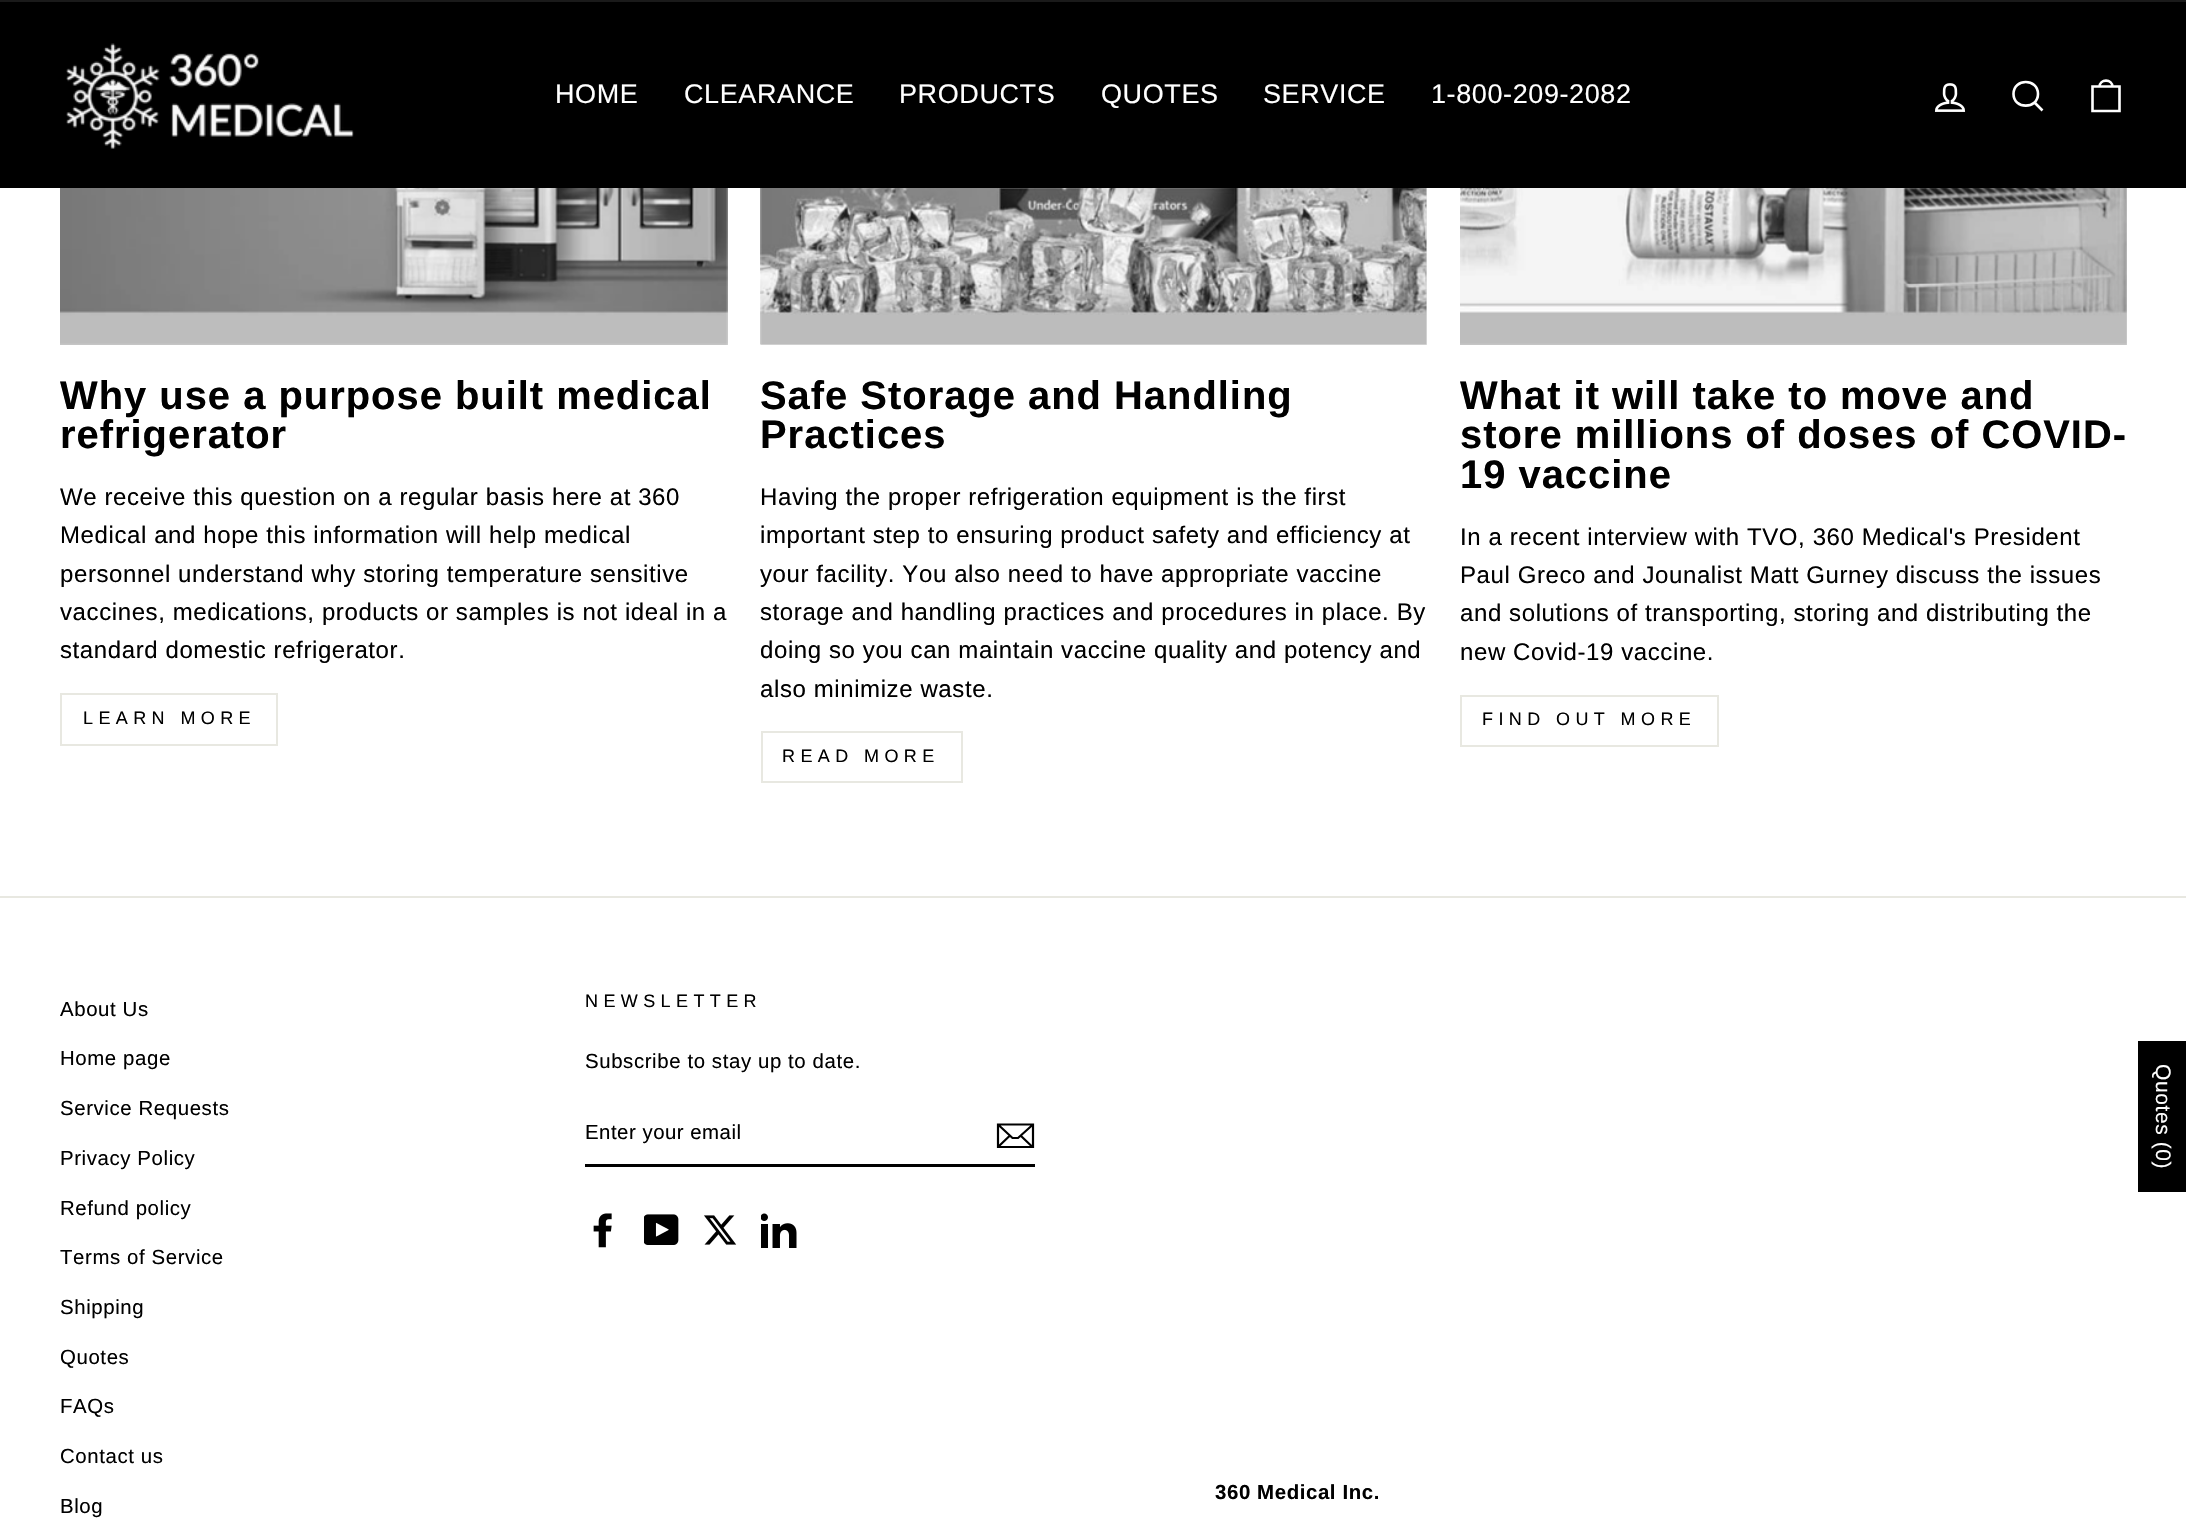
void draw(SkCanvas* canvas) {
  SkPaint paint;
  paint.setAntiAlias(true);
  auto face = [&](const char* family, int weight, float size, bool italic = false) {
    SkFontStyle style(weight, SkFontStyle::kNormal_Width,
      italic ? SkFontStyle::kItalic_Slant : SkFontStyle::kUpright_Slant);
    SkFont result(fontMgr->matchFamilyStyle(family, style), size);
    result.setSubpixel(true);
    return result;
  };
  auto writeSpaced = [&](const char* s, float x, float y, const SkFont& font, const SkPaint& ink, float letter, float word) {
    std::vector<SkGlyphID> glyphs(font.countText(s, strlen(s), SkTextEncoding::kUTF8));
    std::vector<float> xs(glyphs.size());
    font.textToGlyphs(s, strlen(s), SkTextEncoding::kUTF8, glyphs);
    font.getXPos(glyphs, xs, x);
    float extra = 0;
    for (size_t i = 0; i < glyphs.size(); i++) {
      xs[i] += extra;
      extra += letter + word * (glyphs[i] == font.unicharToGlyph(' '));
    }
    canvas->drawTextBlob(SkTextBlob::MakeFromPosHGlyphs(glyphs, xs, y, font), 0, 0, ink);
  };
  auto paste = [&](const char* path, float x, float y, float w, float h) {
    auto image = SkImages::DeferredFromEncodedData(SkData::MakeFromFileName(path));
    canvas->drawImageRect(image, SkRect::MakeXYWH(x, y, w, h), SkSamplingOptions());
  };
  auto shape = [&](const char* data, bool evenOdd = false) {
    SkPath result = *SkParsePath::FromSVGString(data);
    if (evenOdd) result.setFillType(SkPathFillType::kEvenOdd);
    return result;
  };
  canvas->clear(0xffffffff);
  paint.setColor(0xff000000);
  canvas->drawRect(SkRect::MakeXYWH(0, 2, 2186, 186), paint);
  paint.setColor(0xff1a1a1a);
  canvas->drawRect(SkRect::MakeXYWH(0, 0, 2186, 2), paint);
  paste("img/1.png", 66, 43, 288, 106);
  paste("img/2.png", 1934, 83, 32, 29);
  paint.setStroke(true);
  paint.setStrokeWidth(2.6f);
  paint.setColor(0xffffffff);
  canvas->drawPath(shape("M2038 94C2038 109.5 2013.5 109.5 2013.5 94C2013.5 78 2038 78 2038 94ZM2042.5 110.5L2034.5 102.5"), paint);
  canvas->drawPath(shape("M2092.5 86.5H2119.5V111H2092.5ZM2099.5 87C2099.5 78.5 2112.5 78.5 2112.5 87"), paint);
  paint.setStroke(false);
  paint.setColor(0xffe5e5e5);
  canvas->drawRect(SkRect::MakeXYWH(60, 188, 668, 157), paint);
  paste("img/3.png", 60, 188, 668, 157);
  paint.setStroke(true);
  paint.setStrokeWidth(2);
  paint.setColor(0xffe8e8e1);
  canvas->drawRect(SkRect::MakeXYWH(61, 694, 216, 51), paint);
  paint.setStroke(false);
  paint.setColor(0xffe5e5e5);
  canvas->drawRect(SkRect::MakeXYWH(761, 188, 666, 157), paint);
  paste("img/4.png", 760, 188, 667, 157);
  paint.setStroke(true);
  paint.setColor(0xffe8e8e1);
  canvas->drawRect(SkRect::MakeXYWH(762, 732, 200, 50), paint);
  paint.setStroke(false);
  paint.setColor(0xffe5e5e5);
  canvas->drawRect(SkRect::MakeXYWH(1460, 188, 667, 157), paint);
  paste("img/5.png", 1460, 188, 667, 157);
  paint.setStroke(true);
  paint.setColor(0xffe8e8e1);
  canvas->drawRect(SkRect::MakeXYWH(1461, 696, 257, 50), paint);
  paint.setStroke(false);
  canvas->drawRect(SkRect::MakeXYWH(0, 896, 2186, 2), paint);
  paint.setColor(0xff000000);
  canvas->drawRect(SkRect::MakeXYWH(585, 1164, 450, 3), paint);
  paint.setStroke(true);
  paint.setStrokeWidth(2.2f);
  canvas->drawPath(shape("M1033 1147H998V1124.5H1033ZM998 1124.5L1012.5 1138H1018L1033 1124.5M1010 1135.5L998.5 1146.5M1032.5 1147L1020.5 1135.5"), paint);
  paste("img/6.png", 593, 1213, 19, 35);
  paste("img/7.png", 644, 1214, 35, 31);
  paste("img/8.png", 704, 1215, 33, 30);
  paste("img/9.png", 761, 1213, 36, 35);
  paint.setStroke(false);
  canvas->drawRect(SkRect::MakeXYWH(2138, 1041, 48, 151), paint);
  auto f0 = face("Arimo", 400, 27);
  paint.setColor(0xffffffff);
  {
    const struct { const char* s; float x, y; } items[] = {
      {"HOME", 555, 103},
      {"CLEARANCE", 684, 103},
      {"PRODUCTS", 899, 103},
      {"QUOTES", 1101, 103},
      {"SERVICE", 1263, 103},
      {"1-800-209-2082", 1431, 103},
    };
    for (auto [s, x, y] : items) {
      writeSpaced(s, x, y, f0, paint, 0.6f, 0);
    }
  }
  auto f1 = face("Arimo", 700, 39.9f);
  paint.setColor(0xff000000);
  writeSpaced("Why use a purpose built medical", 60, 409, f1, paint, 1, 0);
  writeSpaced("refrigerator", 60, 448, f1, paint, 1, 0);
  auto f2 = face("Arimo", 400, 24);
  {
    const struct { const char* s; float x, y; } items[] = {
      {"We receive this question on a regular basis here at 360", 60, 505},
      {"Medical and hope this information will help medical", 60, 543},
      {"personnel understand why storing temperature sensitive", 60, 582},
      {"vaccines, medications, products or samples is not ideal in a", 60, 620},
      {"standard domestic refrigerator.", 60, 658},
    };
    for (auto [s, x, y] : items) {
      writeSpaced(s, x, y, f2, paint, 0.6f, 0);
    }
  }
  auto f3 = face("Arimo", 400, 18);
  writeSpaced("LEARN MORE", 83, 724, f3, paint, 5.4f, 0);
  writeSpaced("Safe Storage and Handling", 760, 409, f1, paint, 1, 0);
  writeSpaced("Practices", 760, 448, f1, paint, 1, 0);
  {
    const struct { const char* s; float x, y; } items[] = {
      {"Having the proper refrigeration equipment is the first", 760, 505},
      {"important step to ensuring product safety and efficiency at", 760, 543},
      {"your facility. You also need to have appropriate vaccine", 760, 582},
      {"storage and handling practices and procedures in place. By", 760, 620},
      {"doing so you can maintain vaccine quality and potency and", 760, 658},
      {"also minimize waste.", 760, 697},
    };
    for (auto [s, x, y] : items) {
      writeSpaced(s, x, y, f2, paint, 0.6f, 0);
    }
  }
  writeSpaced("READ MORE", 782, 762, f3, paint, 5.4f, 0);
  {
    const struct { const char* s; float x, y; } items[] = {
      {"What it will take to move and", 1460, 409},
      {"store millions of doses of COVID-", 1460, 448},
      {"19 vaccine", 1460, 488},
    };
    for (auto [s, x, y] : items) {
      writeSpaced(s, x, y, f1, paint, 1, 0);
    }
  }
  {
    const struct { const char* s; float x, y; } items[] = {
      {"In a recent interview with TVO, 360 Medical's President", 1460, 545},
      {"Paul Greco and Jounalist Matt Gurney discuss the issues", 1460, 583},
      {"and solutions of transporting, storing and distributing the", 1460, 621},
      {"new Covid-19 vaccine.", 1460, 660},
    };
    for (auto [s, x, y] : items) {
      writeSpaced(s, x, y, f2, paint, 0.6f, 0);
    }
  }
  writeSpaced("FIND OUT MORE", 1482, 725, f3, paint, 5.4f, 0);
  auto f4 = face("Arimo", 400, 20.4f);
  {
    const struct { const char* s; float x, y; } items[] = {
      {"About Us", 60, 1016},
      {"Home page", 60, 1065},
      {"Service Requests", 60, 1115},
      {"Privacy Policy", 60, 1165},
      {"Refund policy", 60, 1215},
      {"Terms of Service", 60, 1264},
      {"Shipping", 60, 1314},
      {"Quotes", 60, 1364},
      {"FAQs", 60, 1413},
      {"Contact us", 60, 1463},
      {"Blog", 60, 1513},
    };
    for (auto [s, x, y] : items) {
      writeSpaced(s, x, y, f4, paint, 0.6f, 0);
    }
  }
  writeSpaced("NEWSLETTER", 585, 1007, f3, paint, 5.4f, 0);
  writeSpaced("Subscribe to stay up to date.", 585, 1068, f4, paint, 0.6f, 0);
  writeSpaced("Enter your email", 585, 1139, f4, paint, 0.5f, 0);
  auto f5 = face("Arimo", 700, 20.4f);
  writeSpaced("360 Medical Inc.", 1215, 1499, f5, paint, 0.6f, 0);
  auto f6 = face("Arimo", 400, 21);
  paint.setColor(0xffffffff);
  canvas->save();
  canvas->rotate(90, 2156, 1064);
  writeSpaced("Quotes (0)", 2156, 1064, f6, paint, 0.6f, 0);
  canvas->restore();
}
